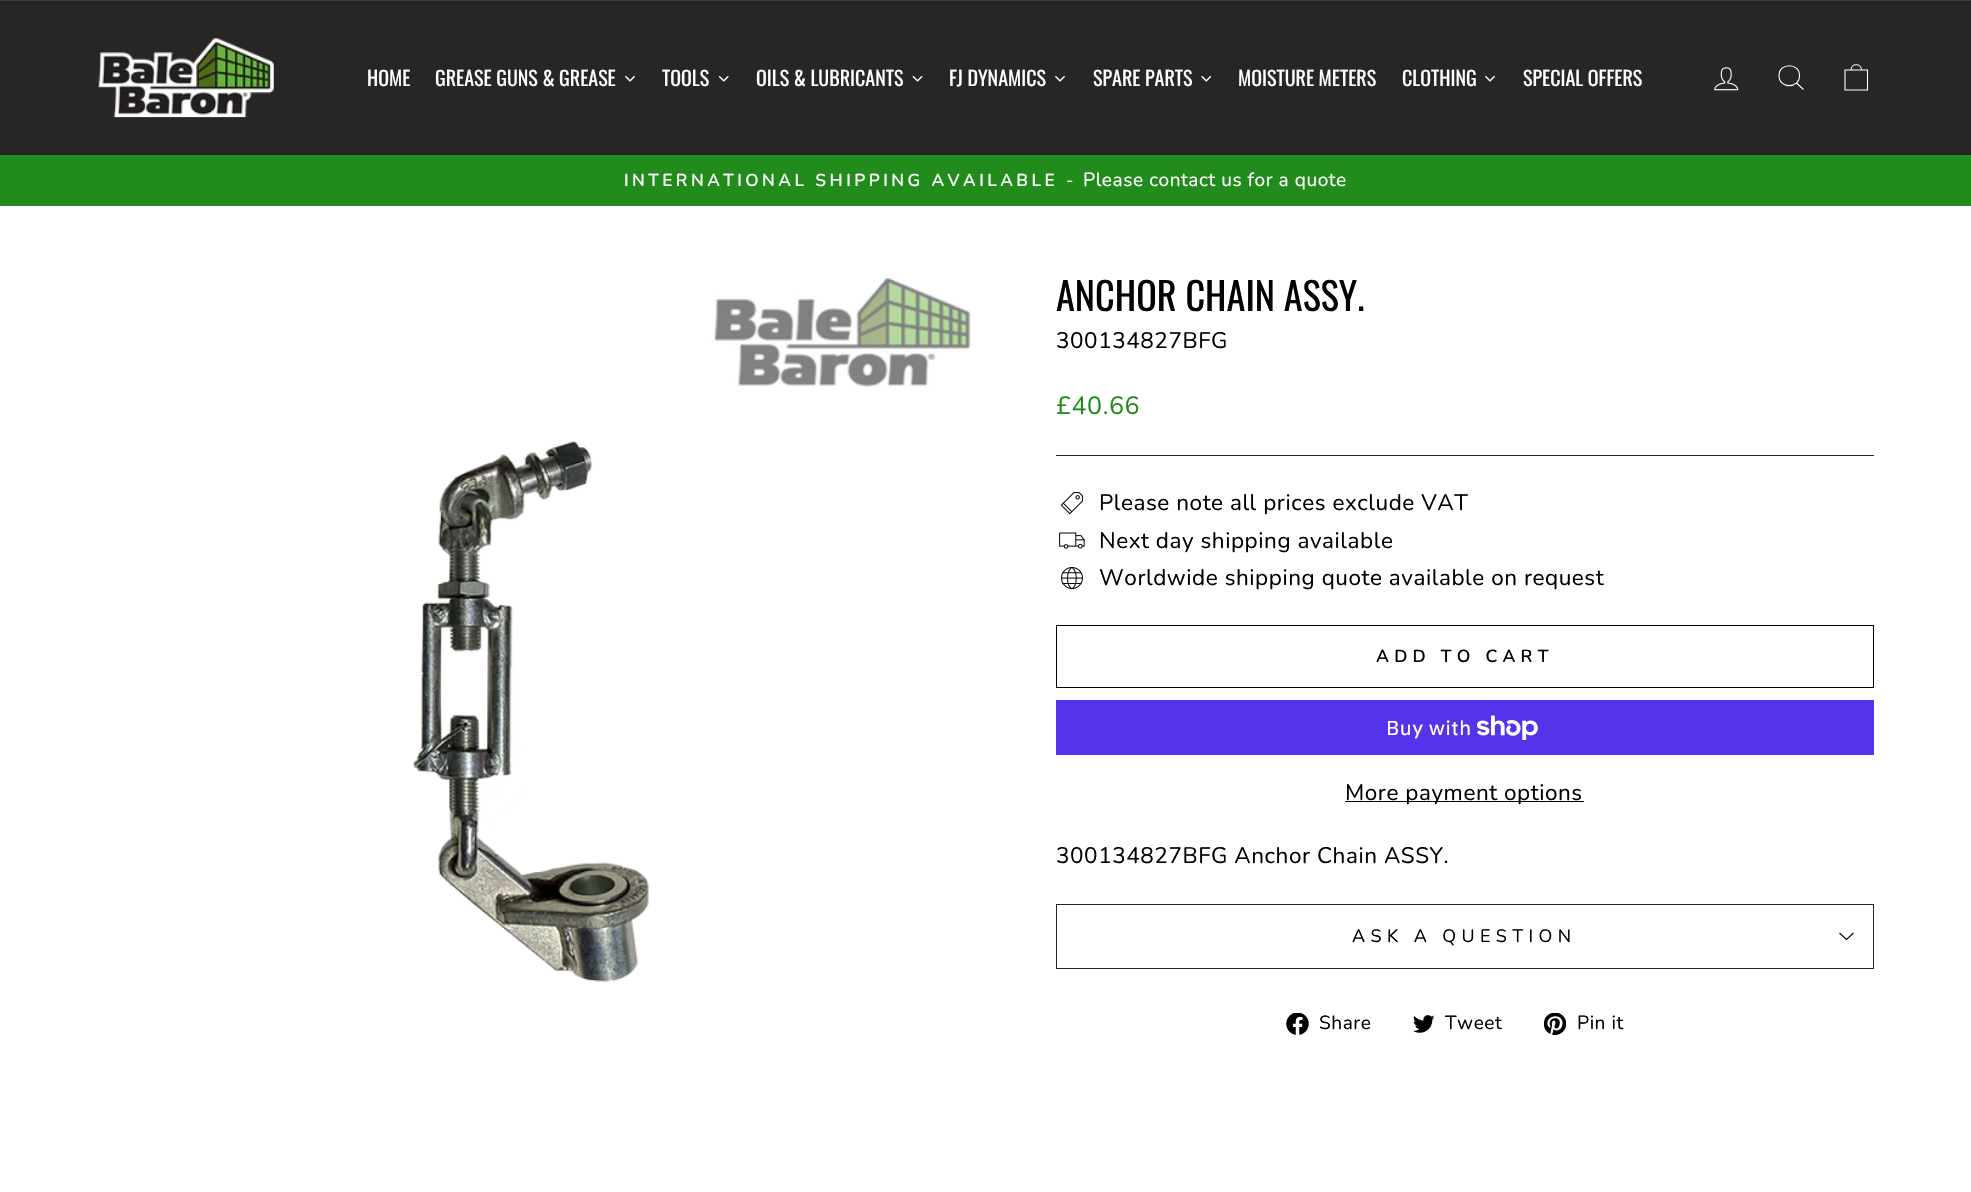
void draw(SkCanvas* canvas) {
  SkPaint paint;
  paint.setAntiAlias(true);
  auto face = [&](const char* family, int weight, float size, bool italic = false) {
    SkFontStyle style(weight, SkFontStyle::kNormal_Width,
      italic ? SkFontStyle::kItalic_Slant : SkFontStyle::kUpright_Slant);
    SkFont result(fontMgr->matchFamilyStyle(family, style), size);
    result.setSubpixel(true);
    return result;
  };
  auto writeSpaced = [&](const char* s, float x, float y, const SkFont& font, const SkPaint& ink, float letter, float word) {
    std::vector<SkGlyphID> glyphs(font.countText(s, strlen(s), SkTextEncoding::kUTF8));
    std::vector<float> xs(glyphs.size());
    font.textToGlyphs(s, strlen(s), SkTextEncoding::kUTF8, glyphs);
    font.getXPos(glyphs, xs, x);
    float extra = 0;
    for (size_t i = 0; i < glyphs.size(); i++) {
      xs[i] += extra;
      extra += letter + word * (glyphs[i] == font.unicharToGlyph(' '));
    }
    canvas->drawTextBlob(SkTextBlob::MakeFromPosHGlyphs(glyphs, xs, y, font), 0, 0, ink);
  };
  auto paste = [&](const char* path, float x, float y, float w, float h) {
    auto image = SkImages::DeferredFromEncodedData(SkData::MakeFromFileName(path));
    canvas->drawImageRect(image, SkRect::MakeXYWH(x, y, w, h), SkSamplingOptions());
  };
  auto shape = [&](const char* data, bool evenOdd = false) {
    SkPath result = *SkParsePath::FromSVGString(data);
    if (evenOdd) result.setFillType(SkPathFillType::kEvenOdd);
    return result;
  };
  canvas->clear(0xffffffff);
  paint.setColor(0xff282624);
  canvas->drawRect(SkRect::MakeXYWH(0, 1, 1971, 154), paint);
  paint.setColor(0xff3e3c3a);
  canvas->drawRect(SkRect::MakeXYWH(0, 0, 1971, 1), paint);
  paste("img/1.png", 98, 38, 176, 80);
  paste("img/2.png", 625, 76, 10, 6);
  paste("img/3.png", 718, 76, 11, 6);
  paste("img/4.png", 912, 76, 11, 6);
  paste("img/2.png", 1055, 76, 10, 6);
  paste("img/5.png", 1201, 76, 11, 6);
  paste("img/2.png", 1485, 76, 10, 6);
  paste("img/6.png", 1714, 67, 25, 24);
  paint.setStroke(true);
  paint.setStrokeWidth(1.1f);
  paint.setColor(0xffffffff);
  canvas->drawPath(shape("M1799.5 75.5C1799.5 89 1779 89 1779 75.5C1779 62.5 1799.5 62.5 1799.5 75.5ZM1803.5 89.5L1796.5 83"), paint);
  canvas->drawPath(shape("M1845 70H1867.5V90H1845ZM1851 70C1851 63 1861.5 63 1861.5 70"), paint);
  paint.setStroke(false);
  paint.setColor(0xff218c1c);
  canvas->drawRect(SkRect::MakeXYWH(0, 155, 1971, 51), paint);
  paste("img/7.png", 412, 276, 560, 707);
  paint.setColor(0xff282624);
  canvas->drawRect(SkRect::MakeXYWH(1056, 455, 818, 1), paint);
  paste("img/8.png", 1060, 492, 23, 23);
  paste("img/9.png", 1059, 532, 26, 17);
  paste("img/10.png", 1061, 567, 22, 23);
  paint.setStroke(true);
  paint.setStrokeWidth(1);
  paint.setColor(0xff000000);
  canvas->drawRect(SkRect::MakeXYWH(1056.5f, 625.5f, 817, 62), paint);
  paint.setStroke(false);
  paint.setColor(0xff5433eb);
  canvas->drawRect(SkRect::MakeXYWH(1056, 700, 818, 55), paint);
  paste("img/11.png", 1476, 715, 62, 25);
  {
    const struct { float x, y, w, h; SkColor color; } items[] = {
      {1345, 801, 239, 1, 0xff000000},
      {1056, 968, 818, 1, 0xff282624},
      {1056, 904, 818, 1, 0xff282624},
      {1873, 904, 1, 64, 0xff282624},
      {1056, 904, 1, 64, 0xff282624},
    };
    for (auto [x, y, w, h, color] : items) {
      paint.setColor(color);
      canvas->drawRect(SkRect::MakeXYWH(x, y, w, h), paint);
    }
  }
  paint.setStroke(true);
  paint.setStrokeWidth(1.1f);
  paint.setColor(0xff000000);
  canvas->drawPath(shape("M1839.5 933L1846.5 939.5L1853.5 933"), paint);
  paste("img/12.png", 1286, 1013, 23, 22);
  paste("img/13.png", 1413, 1015, 22, 18);
  paste("img/14.png", 1544, 1013, 22, 22);
  auto f0 = face("Oswald", 400, 20);
  paint.setStroke(false);
  paint.setColor(0xffffffff);
  {
    const struct { const char* s; float x, y; } items[] = {
      {"HOME", 367, 86},
      {"GREASE GUNS & GREASE", 435, 86},
      {"TOOLS", 662, 86},
      {"OILS & LUBRICANTS", 756, 86},
      {"FJ DYNAMICS", 949, 86},
      {"SPARE PARTS", 1093, 86},
      {"MOISTURE METERS", 1238, 86},
      {"CLOTHING", 1402, 86},
      {"SPECIAL OFFERS", 1523, 86},
    };
    for (auto [s, x, y] : items) {
      canvas->drawString(s, x, y, f0, paint);
    }
  }
  auto f1 = face("Nunito", 600, 17.2f);
  writeSpaced("INTERNATIONAL SHIPPING AVAILABLE -", 624, 186, f1, paint, 3.45f, 0);
  auto f2 = face("Nunito", 400, 19.1f);
  writeSpaced("Please contact us for a quote", 1083, 186, f2, paint, 0.55f, 0);
  auto f3 = face("Oswald", 400, 38.25f);
  paint.setColor(0xff000000);
  canvas->drawString("ANCHOR CHAIN ASSY.", 1056, 311, f3, paint);
  auto f4 = face("Nunito", 400, 22.5f);
  writeSpaced("300134827BFG", 1056, 348, f4, paint, 0.55f, 0);
  auto f5 = face("Nunito", 400, 25);
  paint.setColor(0xff218c1c);
  writeSpaced("£40.66", 1056, 414, f5, paint, 0.55f, 0);
  paint.setColor(0xff000000);
  {
    const struct { const char* s; float x, y; } items[] = {
      {"Please note all prices exclude VAT", 1099, 510},
      {"Next day shipping available", 1099, 548},
      {"Worldwide shipping quote available on request", 1099, 585},
    };
    for (auto [s, x, y] : items) {
      writeSpaced(s, x, y, f4, paint, 0.55f, 0);
    }
  }
  auto f6 = face("Nunito", 600, 17.5f);
  writeSpaced("ADD TO CART", 1376, 662, f6, paint, 5.25f, 0);
  auto f7 = face("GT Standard", 400, 20);
  paint.setColor(0xffffffff);
  writeSpaced("Buy with", 1386, 735, f7, paint, 0.55f, 0);
  paint.setColor(0xff000000);
  writeSpaced("More payment options", 1345, 800, f4, paint, 0.55f, 0);
  writeSpaced("300134827BFG Anchor Chain ASSY.", 1056, 863, f4, paint, 0.55f, 0);
  auto f8 = face("Nunito", 400, 18);
  writeSpaced("ASK A QUESTION", 1352, 942, f8, paint, 5.4f, 0);
  {
    const struct { const char* s; float x, y; } items[] = {
      {"Share", 1319, 1029},
      {"Tweet", 1445, 1029},
      {"Pin it", 1577, 1029},
    };
    for (auto [s, x, y] : items) {
      writeSpaced(s, x, y, f2, paint, 0.55f, 0);
    }
  }
}
